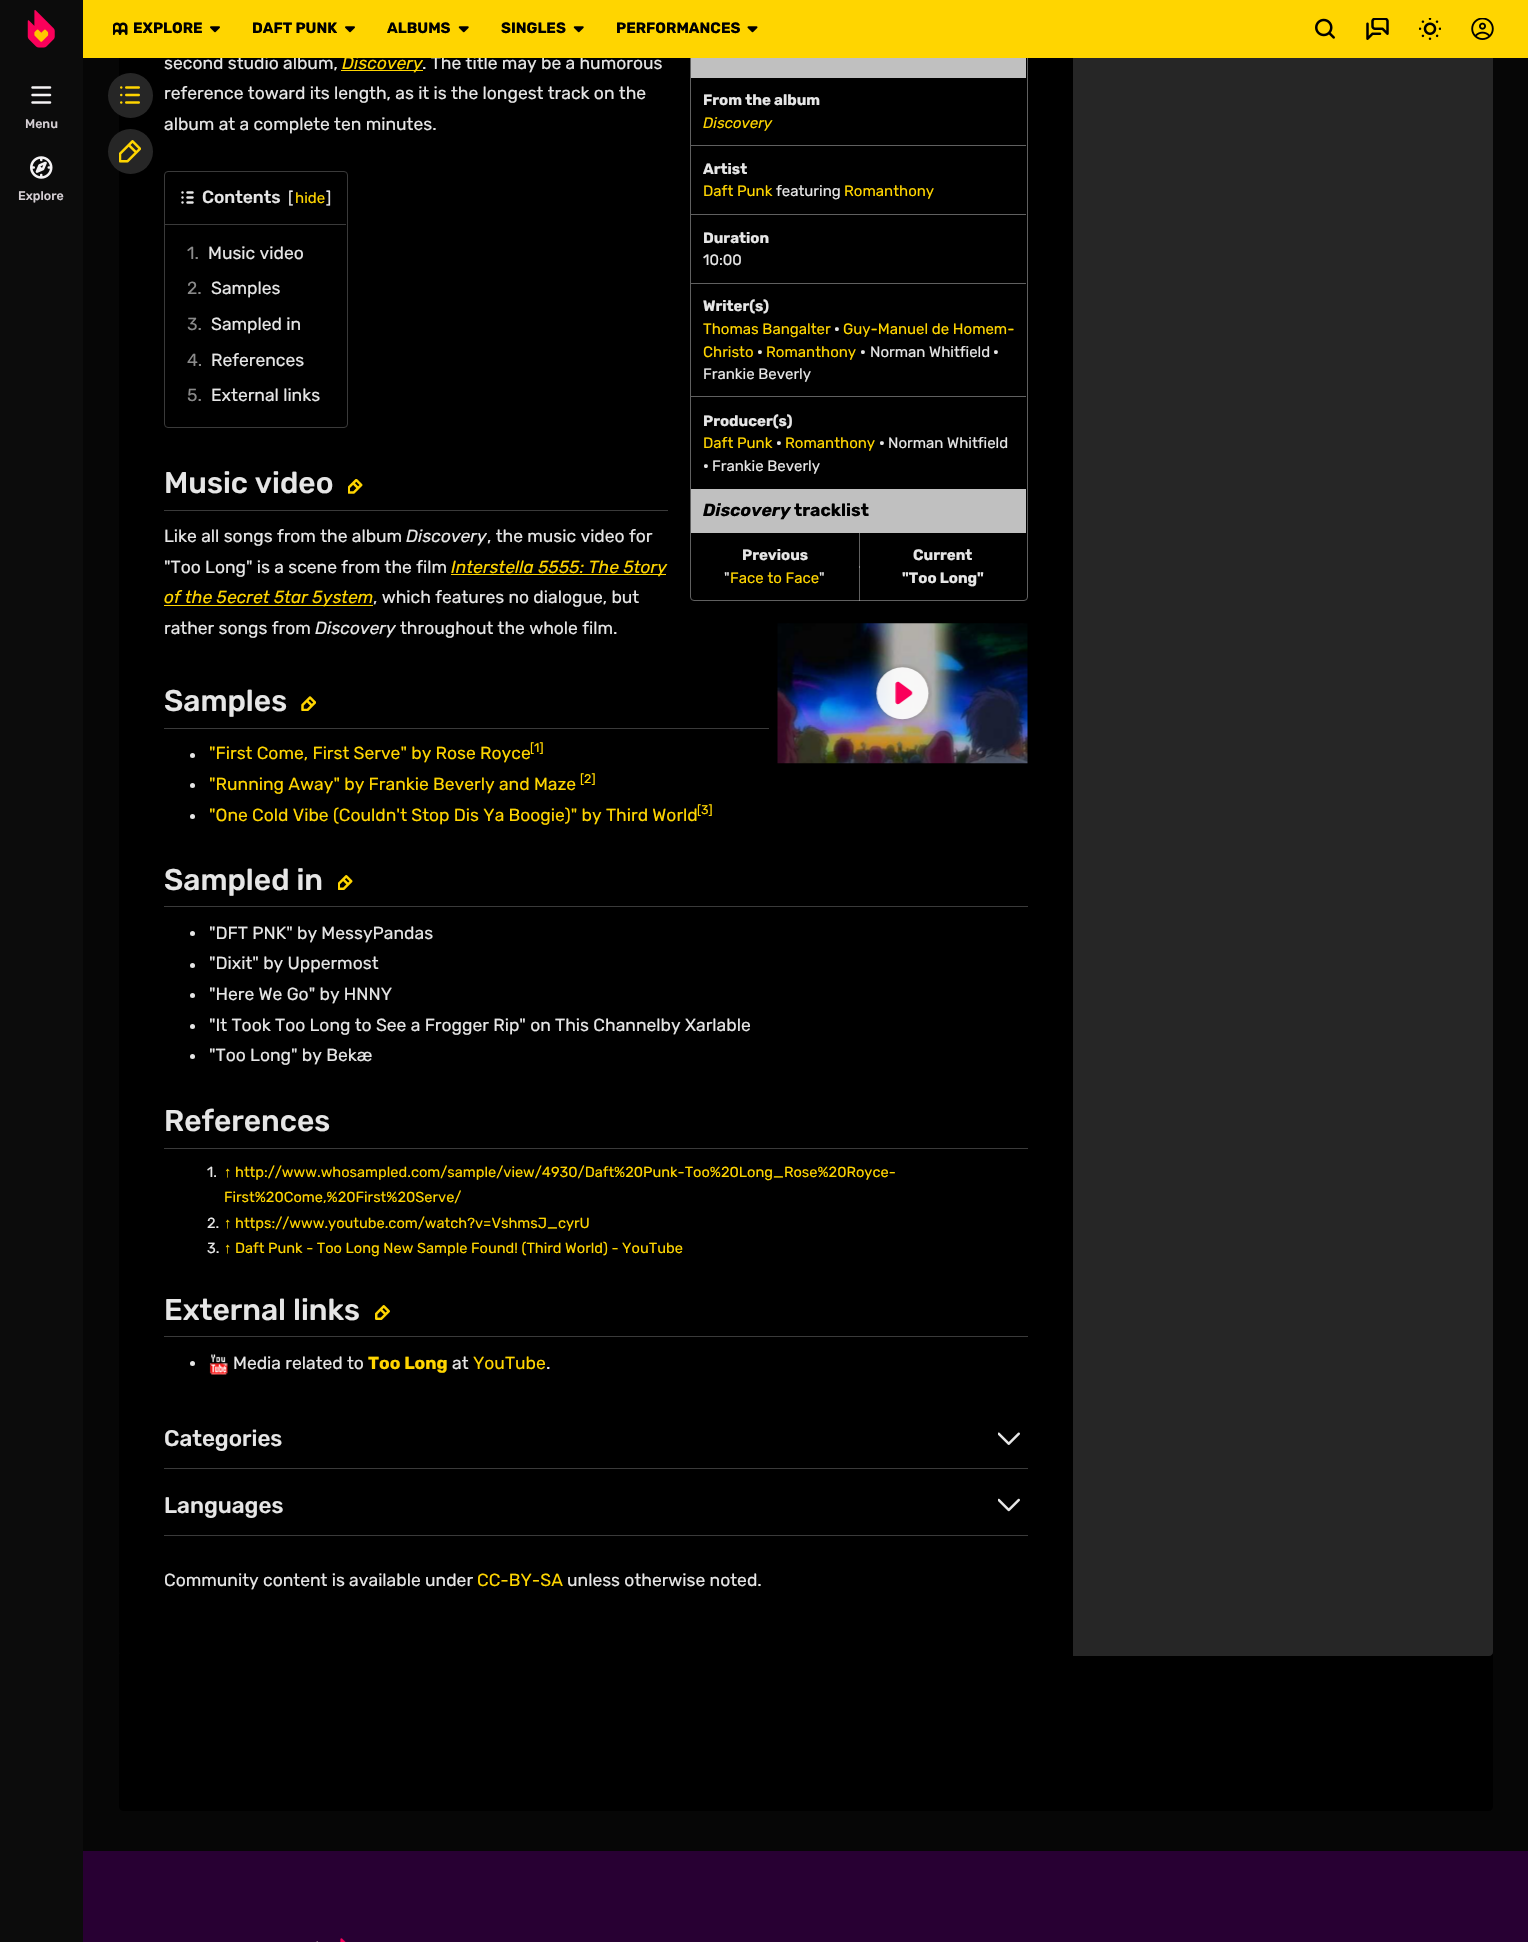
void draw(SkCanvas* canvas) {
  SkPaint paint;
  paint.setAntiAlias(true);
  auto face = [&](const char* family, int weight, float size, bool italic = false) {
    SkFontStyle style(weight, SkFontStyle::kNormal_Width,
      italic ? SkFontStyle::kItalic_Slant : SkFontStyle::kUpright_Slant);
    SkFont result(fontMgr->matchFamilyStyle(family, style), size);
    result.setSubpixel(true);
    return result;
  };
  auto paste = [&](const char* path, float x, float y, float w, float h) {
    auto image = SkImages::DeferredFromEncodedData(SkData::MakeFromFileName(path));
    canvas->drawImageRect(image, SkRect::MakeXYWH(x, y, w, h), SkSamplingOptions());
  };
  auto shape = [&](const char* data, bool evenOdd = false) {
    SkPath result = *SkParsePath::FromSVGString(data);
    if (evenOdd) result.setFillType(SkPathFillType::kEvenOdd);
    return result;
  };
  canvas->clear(0xff060606);
  paint.setColor(0xff0c0c0c);
  canvas->drawRect(SkRect::MakeXYWH(0, 0, 83, 1942), paint);
  paste("img/1.png", 27, 10, 28, 38);
  paste("img/10.png", 31, 86, 21, 18);
  paste("img/11.png", 30, 156, 23, 23);
  paint.setColor(0xff000000);
  canvas->drawPath(shape("M119 1654H1493V1807C1493 1809 1491 1811 1489 1811H123C121 1811 119 1809 119 1807Z"), paint);
  canvas->drawPath(shape("M123-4H1073V1656H123C121 1656 119 1654 119 1652V0C119-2 121-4 123-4Z"), paint);
  paint.setColor(0xff262626);
  canvas->drawCircle(130.5f, 95.5f, 22.5f, paint);
  paste("img/12.png", 120, 86, 20, 18);
  canvas->drawCircle(130.5f, 151.5f, 22.5f, paint);
  paste("img/13.png", 119, 140, 22, 23);
  paint.setColor(0xffffd500);
  canvas->drawRect(SkRect::MakeXYWH(341, 70, 82, 1), paint);
  paint.setStroke(true);
  paint.setStrokeWidth(1);
  paint.setColor(0xff606060);
  canvas->drawRoundRect(SkRect::MakeXYWH(690.5f, 19.5f, 337, 581), 3.5f, 3.5f, paint);
  paint.setStroke(false);
  {
    const struct { float x, y, w, h; SkColor color; } items[] = {
      {691, 58, 335, 20, 0xffc0c0c0},
      {691, 145, 335, 1, 0xff606060},
      {691, 214, 335, 1, 0xff606060},
      {691, 283, 335, 1, 0xff606060},
      {691, 396, 335, 1, 0xff606060},
      {691, 489, 335, 44, 0xffc0c0c0},
      {859, 566, 1, 35, 0x80c0c0c0},
      {859, 533, 1, 35, 0x80c0c0c0},
    };
    for (auto [x, y, w, h, color] : items) {
      paint.setColor(color);
      canvas->drawRect(SkRect::MakeXYWH(x, y, w, h), paint);
    }
  }
  paint.setStroke(true);
  paint.setColor(0xff3a3a3a);
  canvas->drawRoundRect(SkRect::MakeXYWH(164.5f, 171.5f, 183, 256), 3.5f, 3.5f, paint);
  paint.setStroke(false);
  canvas->drawRect(SkRect::MakeXYWH(165, 224, 181, 1), paint);
  paste("img/14.png", 181, 191, 13, 13);
  canvas->drawRect(SkRect::MakeXYWH(164, 510, 504, 1), paint);
  paste("img/15.png", 348, 479, 15, 15);
  {
    const struct { float x, y, w, h; SkColor color; } items[] = {
      {451, 574, 215, 1, 0xffffd500},
      {164, 605, 209, 1, 0xffffd500},
      {164, 728, 605, 1, 0xff3a3a3a},
    };
    for (auto [x, y, w, h, color] : items) {
      paint.setColor(color);
      canvas->drawRect(SkRect::MakeXYWH(x, y, w, h), paint);
    }
  }
  paste("img/16.png", 301, 696, 15, 15);
  paste("img/17.png", 777, 623, 251, 141);
  paste("img/18.png", 874, 664, 58, 59);
  paint.setColor(0xffe6e6e6);
  canvas->drawCircle(192.5f, 755.5f, 2.5f, paint);
  canvas->drawCircle(192.5f, 785.5f, 2.5f, paint);
  canvas->drawCircle(192.5f, 816.5f, 2.5f, paint);
  paint.setColor(0xff3a3a3a);
  canvas->drawRect(SkRect::MakeXYWH(164, 906, 864, 1), paint);
  paste("img/19.png", 338, 875, 15, 15);
  paint.setColor(0xffe6e6e6);
  canvas->drawCircle(192.5f, 933.5f, 2.5f, paint);
  canvas->drawCircle(192.5f, 965.5f, 2.5f, paint);
  canvas->drawCircle(192.5f, 995.5f, 2.5f, paint);
  canvas->drawCircle(192.5f, 1026.5f, 2.5f, paint);
  canvas->drawCircle(192.5f, 1056.5f, 2.5f, paint);
  paint.setColor(0xff3a3a3a);
  canvas->drawRect(SkRect::MakeXYWH(164, 1148, 864, 1), paint);
  canvas->drawRect(SkRect::MakeXYWH(164, 1336, 864, 1), paint);
  paste("img/20.png", 375, 1305, 15, 15);
  paint.setColor(0xffe6e6e6);
  canvas->drawCircle(192.5f, 1363.5f, 2.5f, paint);
  paste("img/21.png", 209, 1354, 19, 21);
  paint.setColor(0xff3a3a3a);
  canvas->drawRect(SkRect::MakeXYWH(164, 1468, 864, 1), paint);
  paste("img/22.png", 998, 1432, 22, 13);
  canvas->drawRect(SkRect::MakeXYWH(164, 1535, 864, 1), paint);
  paste("img/23.png", 998, 1498, 22, 14);
  paint.setColor(0xff262626);
  canvas->drawPath(shape("M1073-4H1489C1491-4 1493-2 1493 0V1652C1493 1654 1491 1656 1489 1656H1073Z"), paint);
  paint.setColor(0xff280033);
  canvas->drawRect(SkRect::MakeXYWH(83, 1851, 1445, 91), paint);
  paste("img/24.png", 316, 1938, 30, 4);
  auto f0 = face("Rubik", 500, 12.5f);
  paint.setColor(0xffd6d0d5);
  canvas->drawString("Menu", 25, 128, f0, paint);
  canvas->drawString("Explore", 18, 200, f0, paint);
  auto f1 = face("Rubik", 400, 17.5f);
  paint.setColor(0xffe6e6e6);
  canvas->drawString("second studio album,", 164, 69, f1, paint);
  auto f2 = face("Rubik", 400, 17.5f, true);
  paint.setColor(0xffffd500);
  canvas->drawString("Discovery", 342, 69, f2, paint);
  paint.setColor(0xffe6e6e6);
  canvas->drawString(". The title may be a humorous", 422, 69, f1, paint);
  paint.setColor(0xffffd500);
  canvas->drawRect(SkRect::MakeXYWH(83, 0, 1445, 58), paint);
  paste("img/6.png", 1315, 18, 20, 21);
  paste("img/9.png", 1471, 18, 23, 22);
  paste("img/5.png", 747, 26, 11, 7);
  auto f3 = face("Rubik", 700, 15);
  paint.setColor(0xff000000);
  canvas->drawString("PERFORMANCES", 616, 33, f3, paint);
  paste("img/4.png", 573, 26, 11, 7);
  canvas->drawString("SINGLES", 501, 33, f3, paint);
  paste("img/4.png", 458, 26, 11, 7);
  canvas->drawString("ALBUMS", 387, 33, f3, paint);
  paste("img/3.png", 345, 26, 10, 7);
  canvas->drawString("DAFT PUNK", 252, 33, f3, paint);
  paste("img/3.png", 210, 26, 10, 7);
  canvas->drawString("EXPLORE", 133, 33, f3, paint);
  paste("img/2.png", 113, 22, 15, 13);
  paste("img/8.png", 1419, 18, 22, 22);
  paste("img/7.png", 1366, 18, 23, 22);
  paint.setColor(0xffe6e6e6);
  canvas->drawString("reference toward its length, as it is the longest track on the", 164, 99, f1, paint);
  canvas->drawString("album at a complete ten minutes.", 164, 130, f1, paint);
  canvas->drawString("From the album", 703, 105, f3, paint);
  auto f4 = face("Rubik", 400, 15, true);
  paint.setColor(0xffffd500);
  canvas->drawString("Discovery", 703, 128, f4, paint);
  paint.setColor(0xffe6e6e6);
  canvas->drawString("Artist", 703, 174, f3, paint);
  auto f5 = face("Rubik", 400, 15);
  paint.setColor(0xffffd500);
  canvas->drawString("Daft Punk", 703, 196, f5, paint);
  paint.setColor(0xffe6e6e6);
  canvas->drawString("featuring", 776, 196, f5, paint);
  paint.setColor(0xffffd500);
  canvas->drawString("Romanthony", 844, 196, f5, paint);
  paint.setColor(0xffe6e6e6);
  canvas->drawString("Duration", 703, 243, f3, paint);
  canvas->drawString("10:00", 703, 265, f5, paint);
  canvas->drawString("Writer(s)", 703, 311, f3, paint);
  paint.setColor(0xffffd500);
  canvas->drawString("Thomas Bangalter", 703, 334, f5, paint);
  paint.setColor(0xffe6e6e6);
  canvas->drawString("•", 834, 334, f3, paint);
  paint.setColor(0xffffd500);
  canvas->drawString("Guy-Manuel de Homem-", 843, 334, f5, paint);
  canvas->drawString("Christo", 703, 357, f5, paint);
  paint.setColor(0xffe6e6e6);
  canvas->drawString("•", 757, 357, f3, paint);
  paint.setColor(0xffffd500);
  canvas->drawString("Romanthony", 766, 357, f5, paint);
  paint.setColor(0xffe6e6e6);
  canvas->drawString("•", 860, 357, f3, paint);
  canvas->drawString("Norman Whitfield", 870, 357, f5, paint);
  canvas->drawString("•", 993, 357, f3, paint);
  canvas->drawString("Frankie Beverly", 703, 379, f5, paint);
  canvas->drawString("Producer(s)", 703, 426, f3, paint);
  paint.setColor(0xffffd500);
  canvas->drawString("Daft Punk", 703, 448, f5, paint);
  paint.setColor(0xffe6e6e6);
  canvas->drawString("•", 776, 448, f3, paint);
  paint.setColor(0xffffd500);
  canvas->drawString("Romanthony", 785, 448, f5, paint);
  paint.setColor(0xffe6e6e6);
  canvas->drawString("•", 879, 448, f3, paint);
  canvas->drawString("Norman Whitfield", 888, 448, f5, paint);
  canvas->drawString("•", 703, 471, f3, paint);
  canvas->drawString("Frankie Beverly", 712, 471, f5, paint);
  auto f6 = face("Rubik", 700, 17.5f, true);
  paint.setColor(0xff000000);
  canvas->drawString("Discovery", 703, 516, f6, paint);
  auto f7 = face("Rubik", 700, 17.5f);
  canvas->drawString("tracklist", 794, 516, f7, paint);
  paint.setColor(0xffe6e6e6);
  canvas->drawString("Previous", 742, 560, f3, paint);
  canvas->drawString("Current", 913, 560, f3, paint);
  canvas->drawString("\"", 724, 583, f5, paint);
  paint.setColor(0xffffd500);
  canvas->drawString("Face to Face", 730, 583, f5, paint);
  paint.setColor(0xffe6e6e6);
  canvas->drawString("\"", 819, 583, f5, paint);
  canvas->drawString("\"Too Long\"", 902, 583, f3, paint);
  auto f8 = face("Rubik", 500, 17.5f);
  canvas->drawString("Contents", 202, 203, f8, paint);
  auto f9 = face("Rubik", 400, 16);
  canvas->drawString("[", 288, 203, f9, paint);
  paint.setColor(0xffffd500);
  canvas->drawString("hide", 295, 203, f5, paint);
  paint.setColor(0xffe6e6e6);
  canvas->drawString("]", 326, 203, f9, paint);
  paint.setColor(0xff8a8a8a);
  canvas->drawString("1.", 187, 259, f1, paint);
  paint.setColor(0xffe6e6e6);
  canvas->drawString("Music video", 208, 259, f1, paint);
  paint.setColor(0xff8a8a8a);
  canvas->drawString("2.", 187, 294, f1, paint);
  paint.setColor(0xffe6e6e6);
  canvas->drawString("Samples", 211, 294, f1, paint);
  paint.setColor(0xff8a8a8a);
  canvas->drawString("3.", 187, 330, f1, paint);
  paint.setColor(0xffe6e6e6);
  canvas->drawString("Sampled in", 211, 330, f1, paint);
  paint.setColor(0xff8a8a8a);
  canvas->drawString("4.", 187, 366, f1, paint);
  paint.setColor(0xffe6e6e6);
  canvas->drawString("References", 211, 366, f1, paint);
  paint.setColor(0xff8a8a8a);
  canvas->drawString("5.", 187, 401, f1, paint);
  paint.setColor(0xffe6e6e6);
  canvas->drawString("External links", 211, 401, f1, paint);
  auto f10 = face("Rubik", 500, 30);
  canvas->drawString("Music video", 164, 493, f10, paint);
  canvas->drawString("Like all songs from the album", 164, 542, f1, paint);
  canvas->drawString("Discovery", 406, 542, f2, paint);
  canvas->drawString(", the music video for", 487, 542, f1, paint);
  canvas->drawString("\"Too Long\" is a scene from the film", 164, 573, f1, paint);
  paint.setColor(0xffffd500);
  canvas->drawString("Interstella 5555: The 5tory", 451, 573, f2, paint);
  canvas->drawString("of the 5ecret 5tar 5ystem", 164, 603, f2, paint);
  paint.setColor(0xffe6e6e6);
  canvas->drawString(", which features no dialogue, but", 373, 603, f1, paint);
  canvas->drawString("rather songs from", 164, 634, f1, paint);
  canvas->drawString("Discovery", 315, 634, f2, paint);
  canvas->drawString("throughout the whole film.", 400, 634, f1, paint);
  canvas->drawString("Samples", 164, 711, f10, paint);
  paint.setColor(0xffffd500);
  canvas->drawString("\"First Come, First Serve\" by Rose Royce", 209, 759, f1, paint);
  auto f11 = face("Rubik", 400, 12.5f);
  canvas->drawString("[1]", 530, 752, f11, paint);
  canvas->drawString("\"Running Away\" by Frankie Beverly and Maze", 209, 790, f1, paint);
  canvas->drawString("[2]", 580, 783, f11, paint);
  canvas->drawString("\"One Cold Vibe (Couldn't Stop Dis Ya Boogie)\" by Third World", 209, 821, f1, paint);
  canvas->drawString("[3]", 697, 814, f11, paint);
  paint.setColor(0xffe6e6e6);
  canvas->drawString("Sampled in", 164, 890, f10, paint);
  {
    const struct { const char* s; float x, y; } items[] = {
      {"\"DFT PNK\" by MessyPandas", 209, 939},
      {"\"Dixit\" by Uppermost", 209, 969},
      {"\"Here We Go\" by HNNY", 209, 1000},
      {"\"It Took Too Long to See a Frogger Rip\" on This Channelby Xarlable", 209, 1031},
      {"\"Too Long\" by Bekæ", 209, 1061},
    };
    for (auto [s, x, y] : items) {
      canvas->drawString(s, x, y, f1, paint);
    }
  }
  canvas->drawString("References", 164, 1131, f10, paint);
  auto f12 = face("Rubik", 400, 14.6f);
  canvas->drawString("1.", 207, 1177, f12, paint);
  auto f13 = face("Liberation Sans", 400, 14.6f);
  paint.setColor(0xffffd500);
  canvas->drawString("↑", 224, 1177, f13, paint);
  canvas->drawString("http://www.whosampled.com/sample/view/4930/Daft%20Punk-Too%20Long_Rose%20Royce-", 235, 1177, f12, paint);
  canvas->drawString("First%20Come,%20First%20Serve/", 224, 1202, f12, paint);
  paint.setColor(0xffe6e6e6);
  canvas->drawString("2.", 207, 1228, f12, paint);
  paint.setColor(0xffffd500);
  canvas->drawString("↑", 224, 1228, f13, paint);
  canvas->drawString("https://www.youtube.com/watch?v=VshmsJ_cyrU", 235, 1228, f12, paint);
  paint.setColor(0xffe6e6e6);
  canvas->drawString("3.", 207, 1253, f12, paint);
  paint.setColor(0xffffd500);
  canvas->drawString("↑", 224, 1253, f13, paint);
  canvas->drawString("Daft Punk - Too Long New Sample Found! (Third World) - YouTube", 235, 1253, f12, paint);
  paint.setColor(0xffe6e6e6);
  canvas->drawString("External links", 164, 1320, f10, paint);
  canvas->drawString("Media related to", 233, 1369, f1, paint);
  paint.setColor(0xffffd500);
  canvas->drawString("Too Long", 368, 1369, f7, paint);
  paint.setColor(0xffe6e6e6);
  canvas->drawString("at", 452, 1369, f1, paint);
  paint.setColor(0xffffd500);
  canvas->drawString("YouTube", 473, 1369, f1, paint);
  paint.setColor(0xffe6e6e6);
  canvas->drawString(".", 546, 1369, f1, paint);
  auto f14 = face("Rubik", 500, 22.5f);
  canvas->drawString("Categories", 164, 1446, f14, paint);
  canvas->drawString("Languages", 164, 1513, f14, paint);
  canvas->drawString("Community content is available under", 164, 1586, f1, paint);
  paint.setColor(0xffffd500);
  canvas->drawString("CC-BY-SA", 477, 1586, f1, paint);
  paint.setColor(0xffe6e6e6);
  canvas->drawString("unless otherwise noted.", 567, 1586, f1, paint);
}
